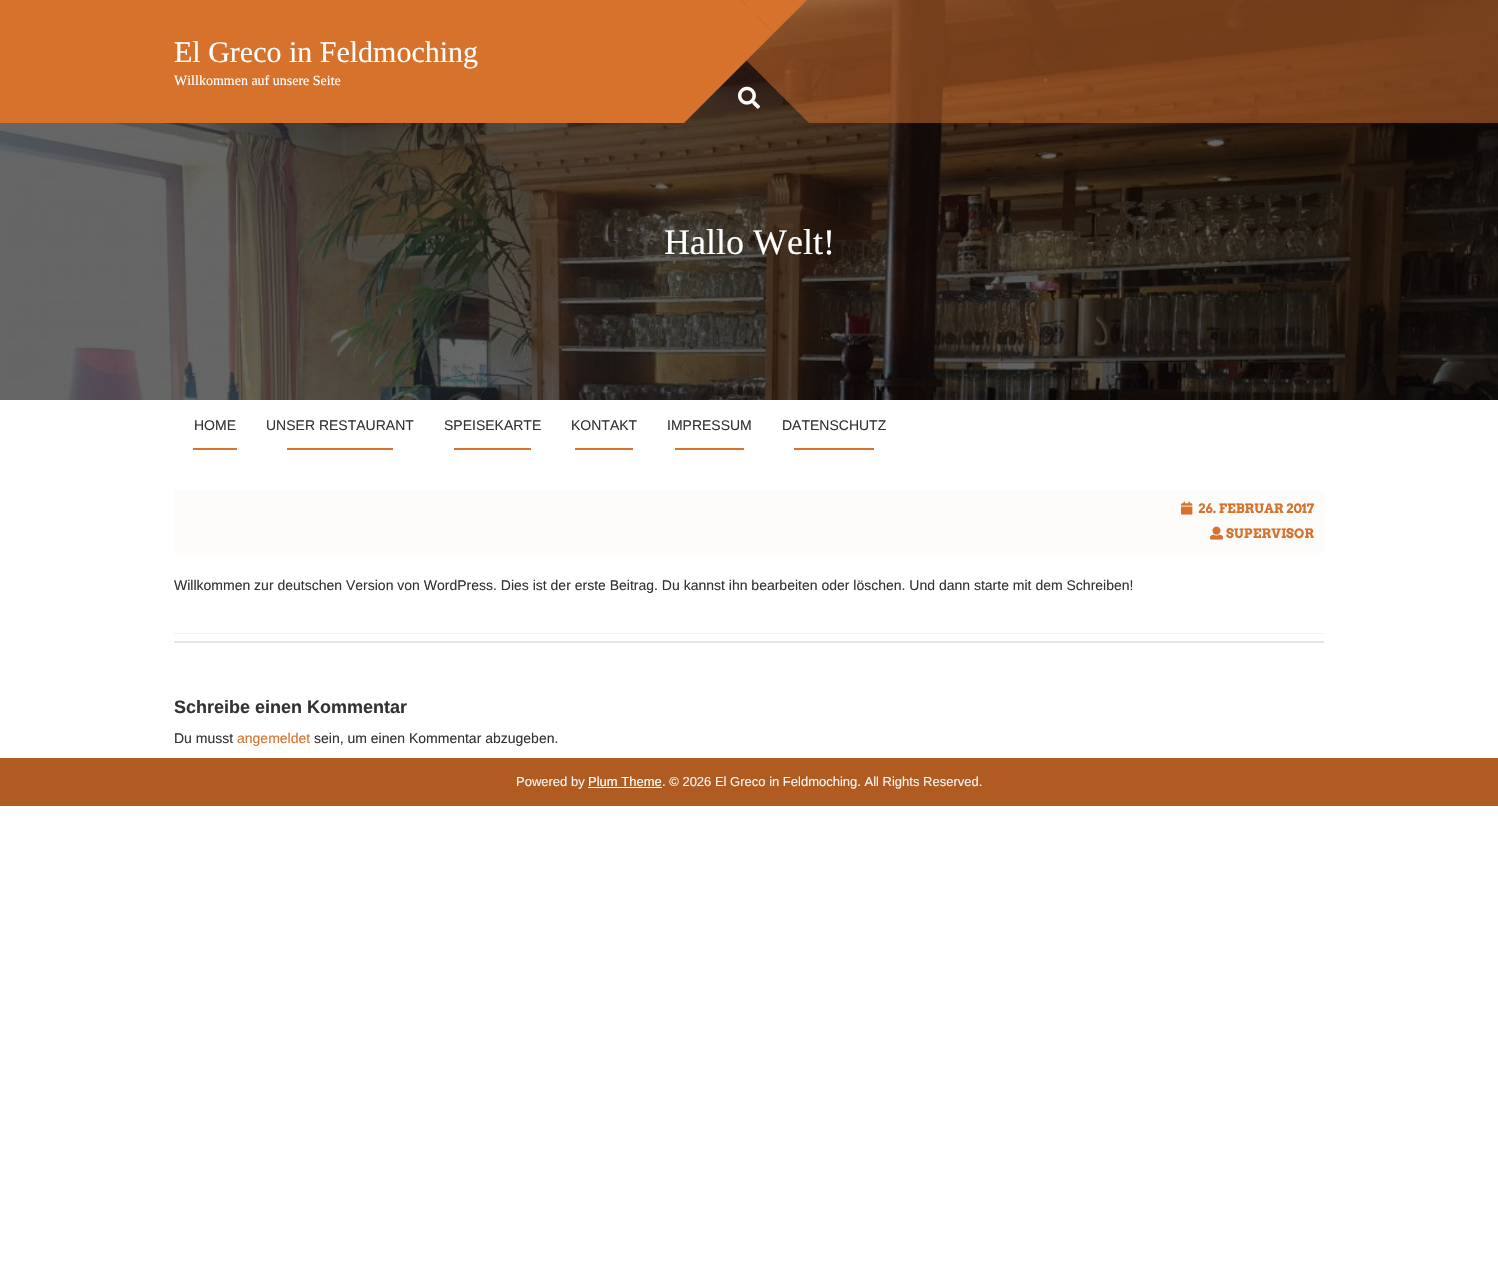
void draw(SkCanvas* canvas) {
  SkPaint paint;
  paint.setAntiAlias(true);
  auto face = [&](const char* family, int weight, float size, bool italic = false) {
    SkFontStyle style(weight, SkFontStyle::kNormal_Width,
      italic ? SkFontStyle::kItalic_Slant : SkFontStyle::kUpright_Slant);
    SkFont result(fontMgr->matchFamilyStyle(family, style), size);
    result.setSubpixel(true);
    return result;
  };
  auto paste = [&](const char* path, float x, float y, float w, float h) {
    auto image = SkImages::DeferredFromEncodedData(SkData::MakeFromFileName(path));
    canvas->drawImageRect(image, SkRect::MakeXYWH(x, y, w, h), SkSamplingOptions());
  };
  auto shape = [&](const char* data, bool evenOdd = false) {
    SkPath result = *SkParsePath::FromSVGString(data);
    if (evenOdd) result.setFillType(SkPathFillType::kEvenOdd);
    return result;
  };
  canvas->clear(0xffffffff);
  paste("img/1.png", 0, 0, 1498, 400);
  paint.setColor(0xffd7722d);
  canvas->drawRect(SkRect::MakeXYWH(0, 0, 684, 123), paint);
  paint.setColor(0x80d7722d);
  canvas->drawPath(shape("M809-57V123L719 33Z"), paint);
  paint.setColor(0xffd7722d);
  canvas->drawPath(shape("M684-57H864L774 33Z"), paint);
  canvas->drawPath(shape("M684 123V-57L774 33Z"), paint);
  paint.setColor(0x80d7722d);
  canvas->drawRect(SkRect::MakeXYWH(809, 0, 510, 123), paint);
  canvas->drawRect(SkRect::MakeXYWH(1319, 0, 179, 123), paint);
  paste("img/2.png", 738, 86, 22, 23);
  {
    const struct { float x, y, w, h; SkColor color; } items[] = {
      {193, 448, 44, 2, 0xffd7722d},
      {287, 448, 106, 2, 0xffd7722d},
      {454, 448, 77, 2, 0xffd7722d},
      {575, 448, 58, 2, 0xffd7722d},
      {675, 448, 69, 2, 0xffd7722d},
      {794, 448, 80, 2, 0xffd7722d},
      {174, 490, 1150, 63, 0xfffefcfb},
    };
    for (auto [x, y, w, h, color] : items) {
      paint.setColor(color);
      canvas->drawRect(SkRect::MakeXYWH(x, y, w, h), paint);
    }
  }
  paste("img/3.png", 1181, 501, 12, 14);
  paste("img/4.png", 1210, 526, 13, 14);
  {
    const struct { float x, y, w, h; SkColor color; } items[] = {
      {174, 633, 1150, 1, 0xfff2f2f2},
      {174, 641, 1150, 2, 0xffe6e6e6},
      {0, 758, 1498, 48, 0xffb05b21},
      {588, 787, 74, 1, 0xffffffff},
    };
    for (auto [x, y, w, h, color] : items) {
      paint.setColor(color);
      canvas->drawRect(SkRect::MakeXYWH(x, y, w, h), paint);
    }
  }
  auto f0 = face("Liberation Serif", 400, 30);
  canvas->drawString("El Greco in Feldmoching", 174, 62, f0, paint);
  auto f1 = face("Liberation Serif", 400, 14);
  canvas->drawString("Willkommen auf unsere Seite", 174, 85, f1, paint);
  auto f2 = face("Liberation Serif", 400, 36);
  canvas->drawString("Hallo Welt!", 664, 254, f2, paint);
  auto f3 = face("Liberation Sans", 400, 14);
  paint.setColor(0xff333333);
  {
    const struct { const char* s; float x, y; } items[] = {
      {"HOME", 194, 430},
      {"UNSER RESTAURANT", 266, 430},
      {"SPEISEKARTE", 444, 430},
      {"KONTAKT", 571, 430},
      {"IMPRESSUM", 667, 430},
      {"DATENSCHUTZ", 782, 430},
    };
    for (auto [s, x, y] : items) {
      canvas->drawString(s, x, y, f3, paint);
    }
  }
  auto f4 = face("Arvo", 700, 13);
  paint.setColor(0xffd7722d);
  canvas->drawString("26. FEBRUAR 2017", 1198, 513, f4, paint);
  canvas->drawString("SUPERVISOR", 1226, 538, f4, paint);
  paint.setColor(0xff333333);
  canvas->drawString("Willkommen zur deutschen Version von WordPress. Dies ist der erste Beitrag. Du kannst ihn bearbeiten oder löschen. Und dann starte mit dem Schreiben!", 174, 590, f3, paint);
  auto f5 = face("Liberation Sans", 700, 18);
  canvas->drawString("Schreibe einen Kommentar", 174, 713, f5, paint);
  canvas->drawString("Du musst", 174, 743, f3, paint);
  paint.setColor(0xffd7722d);
  canvas->drawString("angemeldet", 237, 743, f3, paint);
  paint.setColor(0xff333333);
  canvas->drawString("sein, um einen Kommentar abzugeben.", 314, 743, f3, paint);
  auto f6 = face("Liberation Sans", 400, 13);
  paint.setColor(0xfff5f5f5);
  canvas->drawString("Powered by", 516, 786, f6, paint);
  paint.setColor(0xffffffff);
  canvas->drawString("Plum Theme", 588, 786, f6, paint);
  paint.setColor(0xfff5f5f5);
  canvas->drawString(". © 2026 El Greco in Feldmoching. All Rights Reserved.", 662, 786, f6, paint);
}
